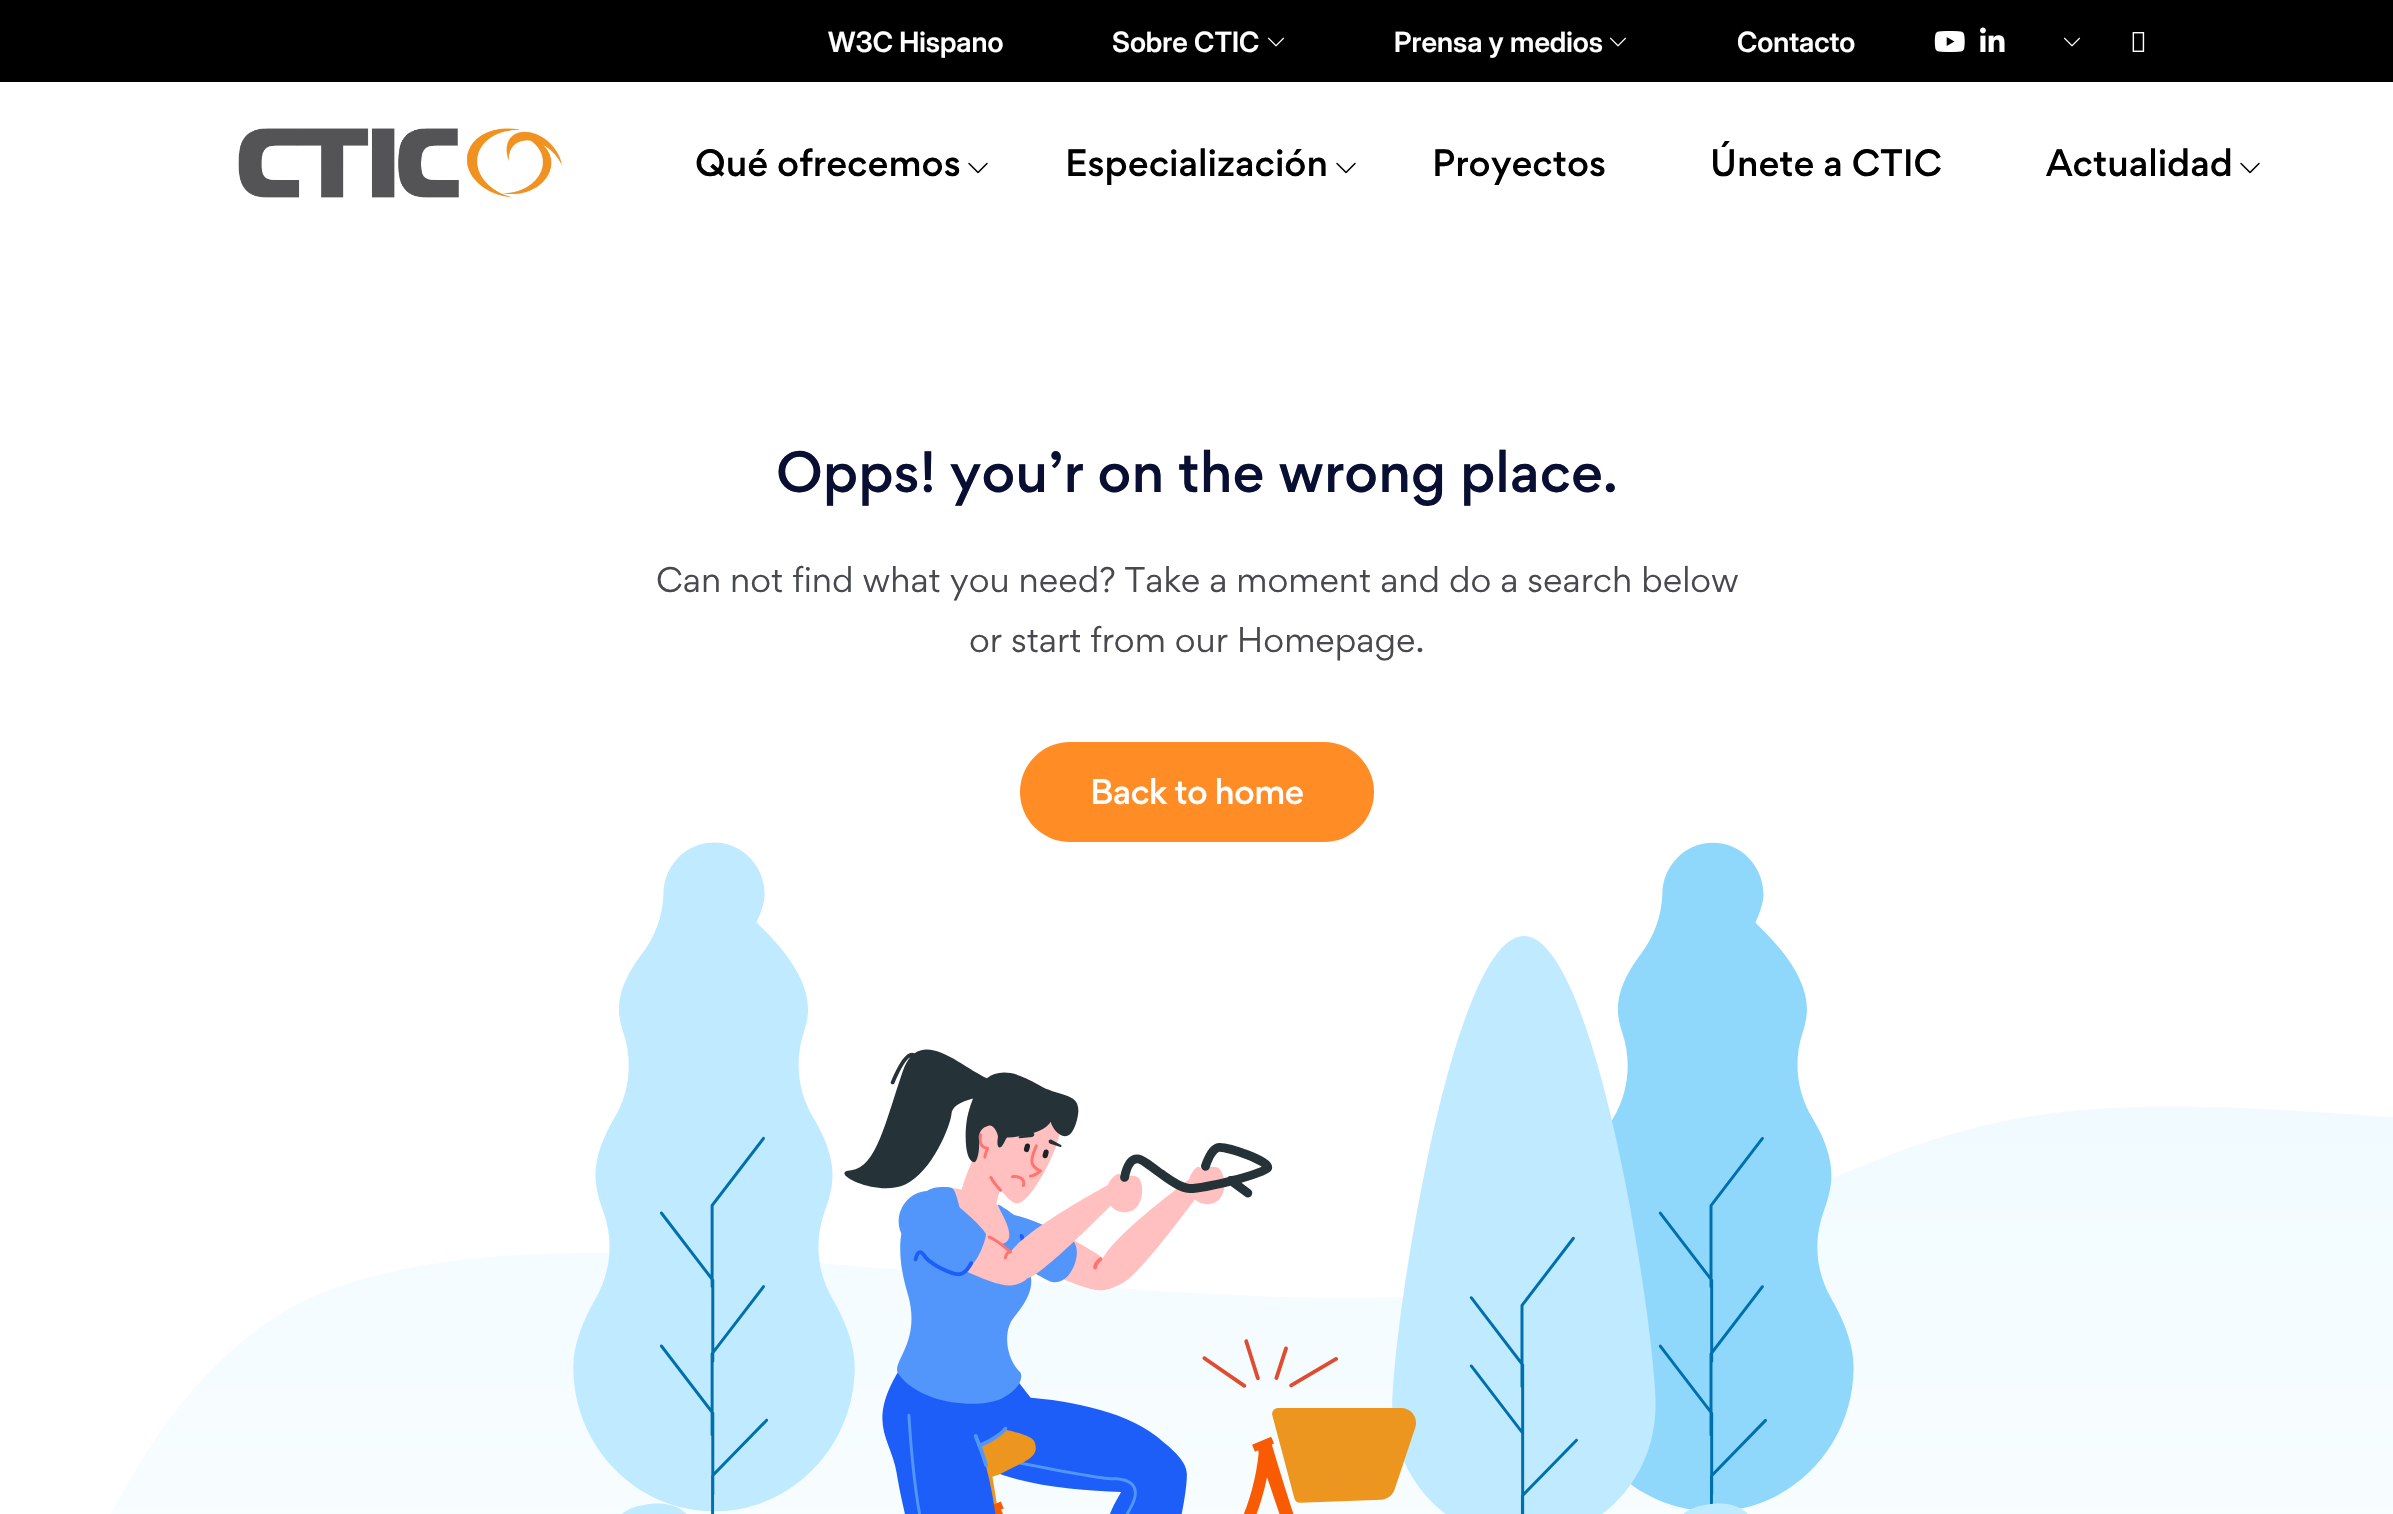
void draw(SkCanvas* canvas) {
  SkPaint paint;
  paint.setAntiAlias(true);
  auto face = [&](const char* family, int weight, float size, bool italic = false) {
    SkFontStyle style(weight, SkFontStyle::kNormal_Width,
      italic ? SkFontStyle::kItalic_Slant : SkFontStyle::kUpright_Slant);
    SkFont result(fontMgr->matchFamilyStyle(family, style), size);
    result.setSubpixel(true);
    return result;
  };
  auto writeSpaced = [&](const char* s, float x, float y, const SkFont& font, const SkPaint& ink, float letter, float word) {
    std::vector<SkGlyphID> glyphs(font.countText(s, strlen(s), SkTextEncoding::kUTF8));
    std::vector<float> xs(glyphs.size());
    font.textToGlyphs(s, strlen(s), SkTextEncoding::kUTF8, glyphs);
    font.getXPos(glyphs, xs, x);
    float extra = 0;
    for (size_t i = 0; i < glyphs.size(); i++) {
      xs[i] += extra;
      extra += letter + word * (glyphs[i] == font.unicharToGlyph(' '));
    }
    canvas->drawTextBlob(SkTextBlob::MakeFromPosHGlyphs(glyphs, xs, y, font), 0, 0, ink);
  };
  auto paste = [&](const char* path, float x, float y, float w, float h) {
    auto image = SkImages::DeferredFromEncodedData(SkData::MakeFromFileName(path));
    canvas->drawImageRect(image, SkRect::MakeXYWH(x, y, w, h), SkSamplingOptions());
  };
  auto shape = [&](const char* data, bool evenOdd = false) {
    SkPath result = *SkParsePath::FromSVGString(data);
    if (evenOdd) result.setFillType(SkPathFillType::kEvenOdd);
    return result;
  };
  canvas->clear(0xffffffff);
  paint.setColor(0xff000000);
  canvas->drawRect(SkRect::MakeXYWH(0, 0, 2393, 82), paint);
  paste("img/1.png", 1267, 37, 18, 10);
  paste("img/1.png", 1609, 37, 18, 10);
  paste("img/2.png", 1934, 31, 31, 21);
  paste("img/3.png", 1980, 27, 25, 25);
  paste("img/1.png", 2063, 37, 18, 10);
  paste("img/4.png", 2132, 32, 13, 20);
  paste("img/5.png", 238, 128, 324, 70);
  paste("img/6.png", 968, 162, 20, 12);
  paste("img/6.png", 1336, 162, 20, 12);
  paste("img/6.png", 2240, 162, 20, 12);
  paint.setColor(0xffff8c24);
  canvas->drawRoundRect(SkRect::MakeXYWH(1020, 742, 354, 100), 50, 50, paint);
  {
    const SkColor colors[] = {0xfff1fbff, 0xffffffff};
    const float stops[] = {0, 1};
    const SkPoint ends[] = {{1274, 1115}, {1274, 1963}};
    paint.setShader(SkGradientShader::MakeLinear(ends, colors, stops, 2, SkTileMode::kClamp));
    paint.setAlpha(255);
  }
  canvas->drawPath(shape("M287 1310C106 1413 0 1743 0 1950L2390 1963C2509 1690 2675 1138 2390 1117C2033 1090 1974 1109 1703 1238C1347 1408 578 1145 287 1310Z"), paint);
  paste("img/7.png", 573, 842, 1281, 672);
  auto f0 = face("Inter Display", 600, 28);
  paint.setShader(nullptr);
  paint.setColor(0xffffffff);
  {
    const struct { const char* s; float x, y; } items[] = {
      {"W3C Hispano", 828, 52},
      {"Sobre CTIC", 1112, 52},
      {"Prensa y medios", 1394, 52},
      {"Contacto", 1737, 52},
    };
    for (auto [s, x, y] : items) {
      canvas->drawString(s, x, y, f0, paint);
    }
  }
  auto f1 = face("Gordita", 500, 34);
  paint.setColor(0xff000000);
  {
    const struct { const char* s; float x, y; } items[] = {
      {"Qué ofrecemos", 695, 176},
      {"Especialización", 1065, 176},
      {"Proyectos", 1432, 176},
      {"Únete a CTIC", 1710, 176},
      {"Actualidad", 2046, 176},
    };
    for (auto [s, x, y] : items) {
      canvas->drawString(s, x, y, f1, paint);
    }
  }
  auto f2 = face("Gordita", 500, 52);
  paint.setColor(0xff090f32);
  canvas->drawString("Opps! you’r on the wrong place.", 776, 492, f2, paint);
  auto f3 = face("Gordita", 400, 32);
  paint.setColor(0xff48494e);
  canvas->drawString("Can not find what you need? Take a moment and do a search below", 656, 592, f3, paint);
  canvas->drawString("or start from our Homepage.", 969, 652, f3, paint);
  auto f4 = face("Gordita", 500, 32);
  paint.setColor(0xffffffff);
  writeSpaced("Back to home", 1090, 804, f4, paint, -0.75f, 0);
}
